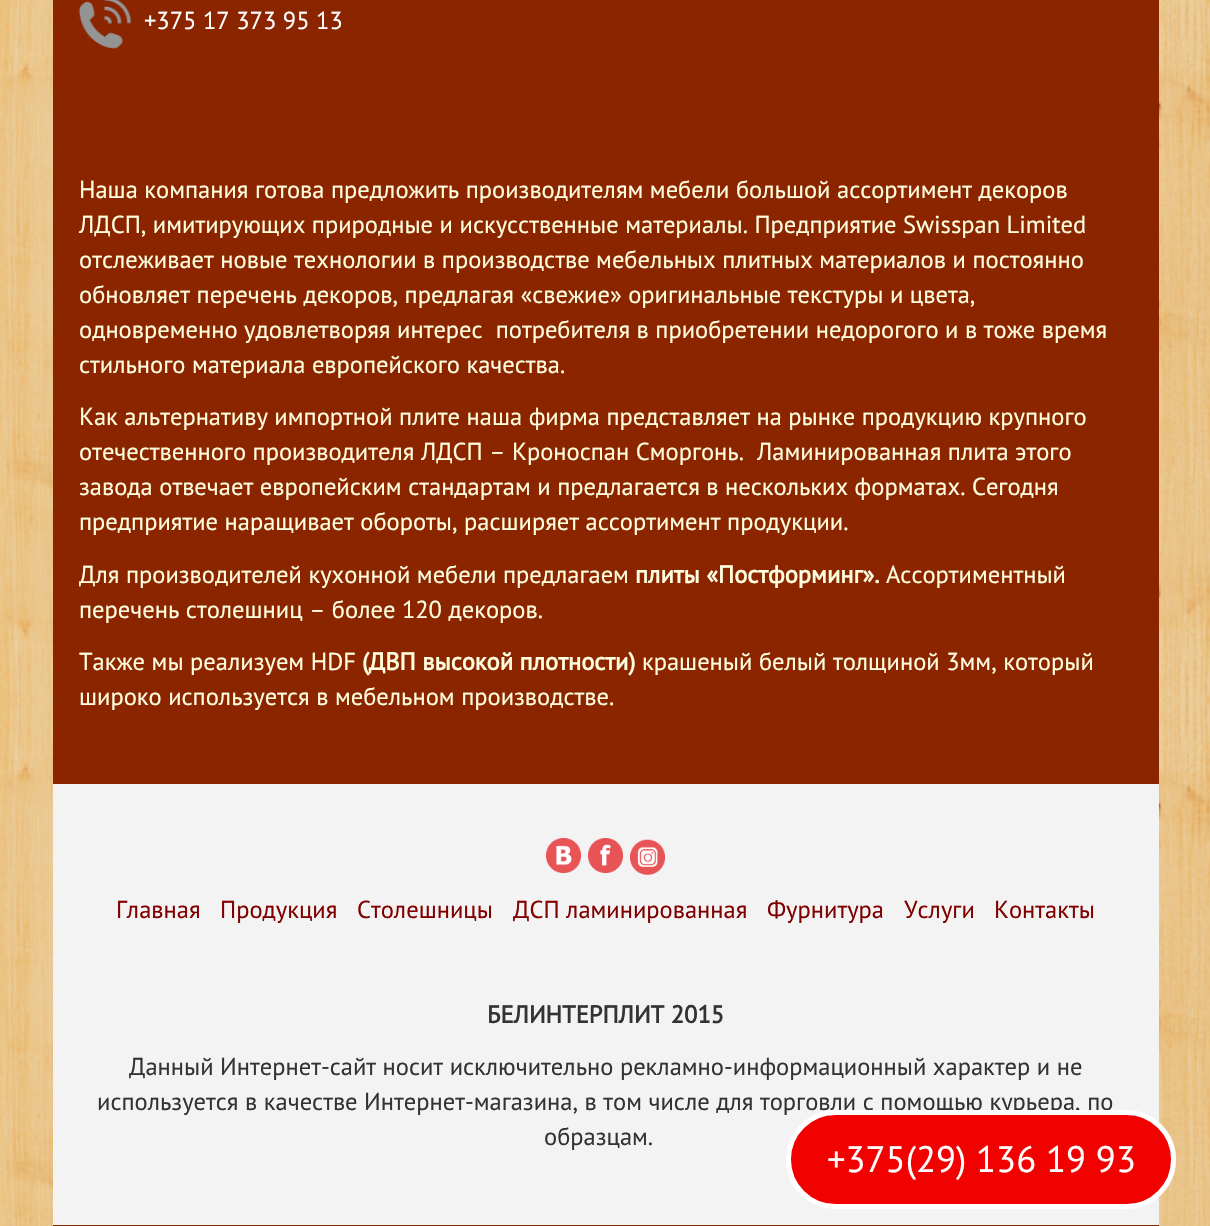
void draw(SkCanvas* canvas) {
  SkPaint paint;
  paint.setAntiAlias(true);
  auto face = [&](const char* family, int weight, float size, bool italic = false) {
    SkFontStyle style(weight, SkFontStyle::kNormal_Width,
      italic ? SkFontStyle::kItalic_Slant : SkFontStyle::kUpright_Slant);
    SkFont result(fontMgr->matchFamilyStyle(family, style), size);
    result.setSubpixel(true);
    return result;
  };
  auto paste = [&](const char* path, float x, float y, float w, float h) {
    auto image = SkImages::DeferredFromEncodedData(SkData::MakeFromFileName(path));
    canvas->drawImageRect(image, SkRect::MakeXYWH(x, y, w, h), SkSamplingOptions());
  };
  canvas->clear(0xffffffff);
  paste("img/1.png", 0, 0, 1210, 1226);
  paint.setColor(0xff8b2500);
  canvas->drawRect(SkRect::MakeXYWH(53, 0, 1106, 1226), paint);
  paste("img/2.png", 78, 0, 54, 49);
  paint.setColor(0xfff4f3f3);
  canvas->drawRect(SkRect::MakeXYWH(53, 784, 1106, 441), paint);
  paste("img/3.png", 546, 838, 35, 35);
  paste("img/4.png", 588, 838, 35, 35);
  paste("img/5.png", 630, 839, 35, 36);
  auto f0 = face("PT Sans", 400, 24.5f);
  paint.setColor(0xffffffff);
  canvas->drawString("+375 17 373 95 13", 144, 29, f0, paint);
  paint.setColor(0xffffffe0);
  {
    const struct { const char* s; float x, y; } items[] = {
      {"Наша компания готова предложить производителям мебели большой ассортимент декоров", 79, 198},
      {"ЛДСП, имитирующих природные и искусственные материалы. Предприятие Swisspan Limited", 79, 233},
      {"отслеживает новые технологии в производстве мебельных плитных материалов и постоянно", 79, 268},
      {"обновляет перечень декоров, предлагая «свежие» оригинальные текстуры и цвета,", 79, 303},
      {"одновременно удовлетворяя интерес  потребителя в приобретении недорогого и в тоже время", 79, 338},
      {"стильного материала европейского качества.", 79, 373},
      {"Как альтернативу импортной плите наша фирма представляет на рынке продукцию крупного", 79, 425},
      {"отечественного производителя ЛДСП – Кроноспан Сморгонь.  Ламинированная плита этого", 79, 460},
      {"завода отвечает европейским стандартам и предлагается в нескольких форматах. Сегодня", 79, 495},
      {"предприятие наращивает обороты, расширяет ассортимент продукции.", 79, 530},
      {"Для производителей кухонной мебели предлагаем", 79, 583},
    };
    for (auto [s, x, y] : items) {
      canvas->drawString(s, x, y, f0, paint);
    }
  }
  auto f1 = face("PT Sans", 700, 24.5f);
  canvas->drawString("плиты «Постформинг».", 635, 583, f1, paint);
  {
    const struct { const char* s; float x, y; } items[] = {
      {"Ассортиментный", 886, 583},
      {"перечень столешниц – более 120 декоров.", 79, 618},
      {"Также мы реализуем HDF", 79, 670},
    };
    for (auto [s, x, y] : items) {
      canvas->drawString(s, x, y, f0, paint);
    }
  }
  canvas->drawString("(ДВП высокой плотности)", 362, 670, f1, paint);
  canvas->drawString("крашеный белый толщиной 3мм, который", 642, 670, f0, paint);
  canvas->drawString("широко используется в мебельном производстве.", 79, 705, f0, paint);
  paint.setColor(0xff800000);
  {
    const struct { const char* s; float x, y; } items[] = {
      {"Главная", 116, 918},
      {"Продукция", 220, 918},
      {"Столешницы", 357, 918},
      {"ДСП ламинированная", 513, 918},
      {"Фурнитура", 767, 918},
      {"Услуги", 904, 918},
      {"Контакты", 994, 918},
    };
    for (auto [s, x, y] : items) {
      canvas->drawString(s, x, y, f0, paint);
    }
  }
  paint.setColor(0xff333333);
  canvas->drawString("БЕЛИНТЕРПЛИТ 2015", 487, 1023, f1, paint);
  {
    const struct { const char* s; float x, y; } items[] = {
      {"Данный Интернет-сайт носит исключительно рекламно-информационный характер и не", 129, 1075},
      {"используется в качестве Интернет-магазина, в том числе для торговли с помощью курьера, по", 97, 1110},
      {"образцам.", 544, 1145},
    };
    for (auto [s, x, y] : items) {
      canvas->drawString(s, x, y, f0, paint);
    }
  }
  paint.setColor(0xfff10100);
  canvas->drawRoundRect(SkRect::MakeXYWH(788.5f, 1112.5f, 385, 94), 47, 47, paint);
  paint.setStroke(true);
  paint.setStrokeWidth(5);
  paint.setColor(0xffffffff);
  canvas->drawRoundRect(SkRect::MakeXYWH(788.5f, 1112.5f, 385, 94), 47, 47, paint);
  auto f2 = face("PT Sans", 400, 36.75f);
  paint.setStroke(false);
  canvas->drawString("+375(29) 136 19 93", 827, 1172, f2, paint);
}
